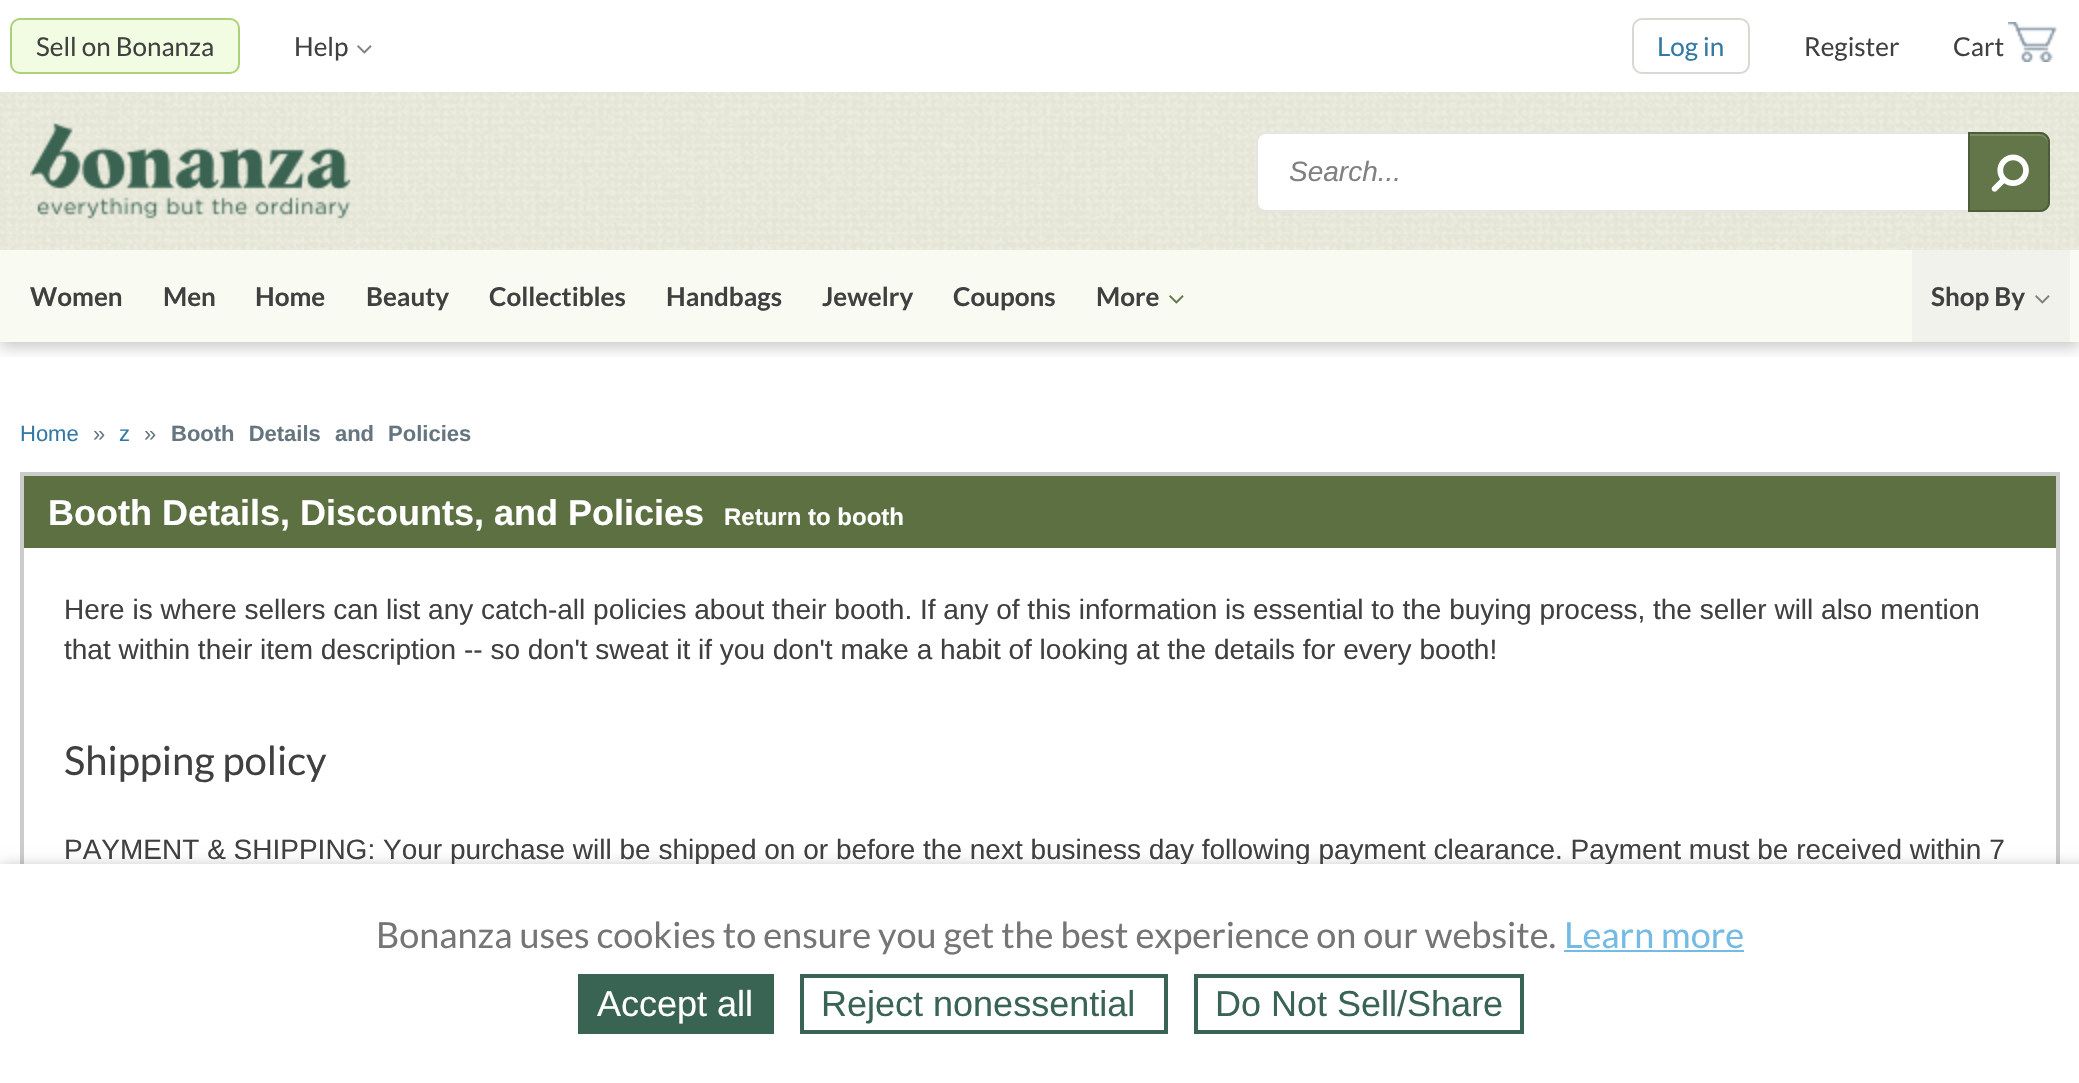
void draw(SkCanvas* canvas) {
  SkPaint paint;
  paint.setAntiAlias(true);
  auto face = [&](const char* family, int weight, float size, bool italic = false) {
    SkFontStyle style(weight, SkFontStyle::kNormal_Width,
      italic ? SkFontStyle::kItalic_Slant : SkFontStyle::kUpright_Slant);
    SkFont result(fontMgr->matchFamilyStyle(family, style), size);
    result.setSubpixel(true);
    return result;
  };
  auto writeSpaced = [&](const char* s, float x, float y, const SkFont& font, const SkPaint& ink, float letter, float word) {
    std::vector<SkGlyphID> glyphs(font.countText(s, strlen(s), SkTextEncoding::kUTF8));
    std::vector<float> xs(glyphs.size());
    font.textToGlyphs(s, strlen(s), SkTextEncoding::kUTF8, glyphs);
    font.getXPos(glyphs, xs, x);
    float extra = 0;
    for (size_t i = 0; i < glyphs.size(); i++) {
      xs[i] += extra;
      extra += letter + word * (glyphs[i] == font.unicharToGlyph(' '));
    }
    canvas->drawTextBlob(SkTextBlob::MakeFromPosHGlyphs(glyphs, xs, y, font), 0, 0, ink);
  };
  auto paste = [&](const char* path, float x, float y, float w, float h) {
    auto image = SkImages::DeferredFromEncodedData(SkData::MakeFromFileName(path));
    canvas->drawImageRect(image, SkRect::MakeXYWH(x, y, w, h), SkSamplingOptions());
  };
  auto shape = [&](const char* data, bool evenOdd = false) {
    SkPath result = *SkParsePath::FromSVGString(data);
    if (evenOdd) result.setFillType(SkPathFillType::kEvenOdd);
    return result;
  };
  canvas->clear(0xffffffff);
  canvas->save();
  canvas->clipRect(SkRect::MakeXYWH(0, 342, 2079, 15));
  paint.setColor(0x33000000);
  paint.setMaskFilter(SkMaskFilter::MakeBlur(kNormal_SkBlurStyle, 7));
  canvas->drawRect(SkRect::MakeXYWH(0, 6, 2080, 342), paint);
  paint.setMaskFilter(nullptr);
  canvas->restore();
  paint.setColor(0xfff2fce3);
  canvas->drawRoundRect(SkRect::MakeXYWH(11, 19, 228, 54), 9, 9, paint);
  paint.setStroke(true);
  paint.setStrokeWidth(2);
  paint.setColor(0xffabd179);
  canvas->drawRoundRect(SkRect::MakeXYWH(11, 19, 228, 54), 9, 9, paint);
  paste("img/1.png", 357, 45, 15, 9);
  paint.setColor(0xffd8d9d2);
  canvas->drawRoundRect(SkRect::MakeXYWH(1633, 19, 116, 54), 9, 9, paint);
  paste("img/2.png", 2008, 22, 49, 40);
  paste("img/3.png", 0, 92, 2079, 158);
  paste("img/4.png", 30, 122, 321, 97);
  paint.setStroke(false);
  paint.setColor(0xffffffff);
  canvas->drawPath(shape("M1266 133H1975V211H1266C1261 211 1257 207 1257 202V142C1257 137 1261 133 1266 133Z"), paint);
  paint.setStroke(true);
  paint.setColor(0xffe5e5e1);
  canvas->drawPath(shape("M1266 133H1975V211H1266C1261 211 1257 207 1257 202V142C1257 137 1261 133 1266 133Z"), paint);
  paint.setStroke(false);
  paint.setColor(0xff62764a);
  canvas->drawPath(shape("M1968 132H2040C2045.5 132 2050 136.5 2050 142V202C2050 207.5 2045.5 212 2040 212H1968Z"), paint);
  paint.setColor(0xff778f5a);
  canvas->drawPath(shape("M1970 136H2040C2044 136 2048 140 2048 144V142C2048 138 2044 134 2040 134H1970Z"), paint);
  paint.setStroke(true);
  paint.setColor(0xff4d5c3a);
  canvas->drawPath(shape("M1969 133H2040C2045 133 2049 137 2049 142V202C2049 207 2045 211 2040 211H1969Z"), paint);
  paste("img/5.png", 1991, 154, 38, 38);
  paint.setStroke(false);
  paint.setColor(0xfff9faf2);
  canvas->drawRect(SkRect::MakeXYWH(0, 250, 2079, 92), paint);
  paste("img/6.png", 1169, 295, 15, 9);
  paint.setColor(0xfff1f2eb);
  canvas->drawRect(SkRect::MakeXYWH(1912, 250, 158, 92), paint);
  paste("img/7.png", 2035, 295, 15, 9);
  paint.setStroke(true);
  paint.setStrokeWidth(4);
  paint.setColor(0xffcccccc);
  canvas->drawRect(SkRect::MakeXYWH(22, 474, 2036, 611), paint);
  paint.setStroke(false);
  paint.setColor(0xff5c7042);
  canvas->drawRect(SkRect::MakeXYWH(24, 476, 2032, 72), paint);
  paint.setColor(0x40000000);
  paint.setMaskFilter(SkMaskFilter::MakeBlur(kNormal_SkBlurStyle, 7));
  canvas->drawRect(SkRect::MakeXYWH(0, 866, 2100, 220), paint);
  paint.setMaskFilter(nullptr);
  auto f0 = face("Lato", 400, 26);
  paint.setColor(0xff404040);
  canvas->drawString("Sell on Bonanza", 36, 56, f0, paint);
  canvas->drawString("Help", 294, 56, f0, paint);
  paint.setColor(0xff3279a6);
  canvas->drawString("Log in", 1657, 56, f0, paint);
  paint.setColor(0xff404040);
  canvas->drawString("Register", 1804, 56, f0, paint);
  canvas->drawString("Cart", 1953, 56, f0, paint);
  auto f1 = face("Liberation Sans", 400, 28, true);
  paint.setColor(0xff808080);
  canvas->drawString("Search...", 1289, 181, f1, paint);
  auto f2 = face("Lato", 700, 26);
  paint.setColor(0xff404040);
  {
    const struct { const char* s; float x, y; } items[] = {
      {"Women", 30, 306},
      {"Men", 163, 306},
      {"Home", 255, 306},
      {"Beauty", 366, 306},
      {"Collectibles", 489, 306},
      {"Handbags", 666, 306},
      {"Jewelry", 822, 306},
      {"Coupons", 953, 306},
      {"More", 1096, 306},
      {"Shop By", 1931, 306},
    };
    for (auto [s, x, y] : items) {
      canvas->drawString(s, x, y, f2, paint);
    }
  }
  auto f3 = face("Liberation Sans", 400, 22);
  paint.setColor(0xff3279a6);
  canvas->drawString("Home", 20, 441, f3, paint);
  paint.setColor(0xff667680);
  canvas->drawString("»", 93, 441, f3, paint);
  paint.setColor(0xff3279a6);
  canvas->drawString("z", 119, 441, f3, paint);
  paint.setColor(0xff667680);
  canvas->drawString("»", 144, 441, f3, paint);
  auto f4 = face("Liberation Sans", 700, 22);
  writeSpaced("Booth Details and Policies", 171, 441, f4, paint, 0, 8);
  auto f5 = face("Liberation Sans", 700, 36);
  paint.setColor(0xffffffff);
  canvas->drawString("Booth Details, Discounts, and Policies", 48, 525, f5, paint);
  auto f6 = face("Liberation Sans", 700, 24);
  canvas->drawString("Return to booth", 724, 525, f6, paint);
  auto f7 = face("Liberation Sans", 400, 28);
  paint.setColor(0xff404040);
  canvas->drawString("Here is where sellers can list any catch-all policies about their booth. If any of this information is essential to the buying process, the seller will also mention", 64, 619, f7, paint);
  canvas->drawString("that within their item description -- so don't sweat it if you don't make a habit of looking at the details for every booth!", 64, 659, f7, paint);
  auto f8 = face("Lato", 400, 40);
  canvas->drawString("Shipping policy", 64, 775, f8, paint);
  canvas->drawString("PAYMENT & SHIPPING: Your purchase will be shipped on or before the next business day following payment clearance. Payment must be received within 7", 64, 859, f7, paint);
  paint.setColor(0xffffffff);
  canvas->drawRect(SkRect::MakeXYWH(0, 864, 2079, 219), paint);
  auto f9 = face("Lato", 400, 36);
  paint.setColor(0xff757575);
  canvas->drawString("Bonanza uses cookies to ensure you get the best experience on our website.", 376, 948, f9, paint);
  paint.setColor(0xff73bae5);
  canvas->drawString("Learn more", 1564, 948, f9, paint);
  canvas->drawRect(SkRect::MakeXYWH(1564, 950, 180, 2), paint);
  paint.setColor(0xff396353);
  canvas->drawRect(SkRect::MakeXYWH(578, 974, 196, 60), paint);
  auto f10 = face("Liberation Sans", 400, 36);
  paint.setColor(0xffffffff);
  canvas->drawString("Accept all", 597, 1016, f10, paint);
  paint.setStroke(true);
  paint.setColor(0xff396353);
  canvas->drawRect(SkRect::MakeXYWH(802, 976, 364, 56), paint);
  paint.setStroke(false);
  canvas->drawString("Reject non‑essential", 821, 1016, f10, paint);
  paint.setStroke(true);
  canvas->drawRect(SkRect::MakeXYWH(1196, 976, 326, 56), paint);
  paint.setStroke(false);
  canvas->drawString("Do Not Sell/Share", 1215, 1016, f10, paint);
}
